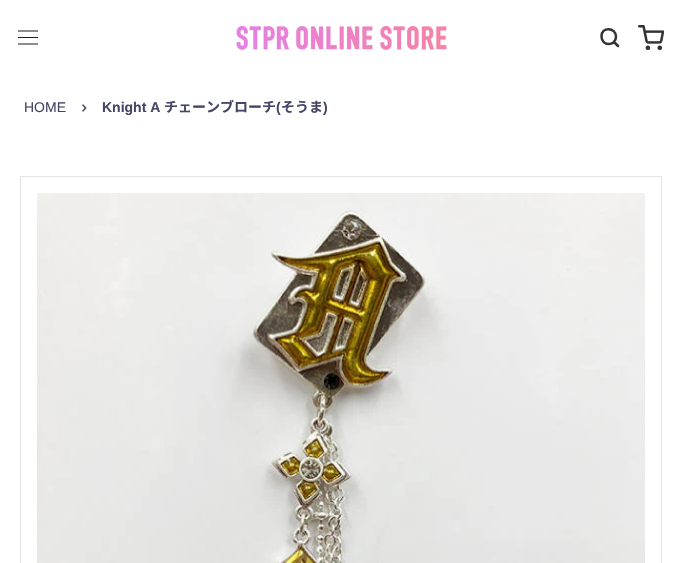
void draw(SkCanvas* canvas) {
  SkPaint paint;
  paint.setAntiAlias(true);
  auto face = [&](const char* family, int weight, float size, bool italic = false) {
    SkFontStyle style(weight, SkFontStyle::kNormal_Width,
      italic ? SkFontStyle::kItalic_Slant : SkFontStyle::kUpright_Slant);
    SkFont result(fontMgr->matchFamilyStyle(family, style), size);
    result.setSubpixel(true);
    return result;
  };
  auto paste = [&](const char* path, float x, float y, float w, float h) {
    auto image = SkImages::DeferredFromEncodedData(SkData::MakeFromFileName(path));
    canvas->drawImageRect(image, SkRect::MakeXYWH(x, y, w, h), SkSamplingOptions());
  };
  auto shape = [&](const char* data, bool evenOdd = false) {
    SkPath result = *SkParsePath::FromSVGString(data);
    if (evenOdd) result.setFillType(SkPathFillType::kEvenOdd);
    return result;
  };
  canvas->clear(0xffffffff);
  paste("img/1.png", 18, 30, 20, 15);
  paste("img/2.png", 236, 25, 211, 25);
  paint.setStroke(true);
  paint.setStrokeWidth(2.5f);
  paint.setStrokeCap(SkPaint::kRound_Cap);
  paint.setStrokeJoin(SkPaint::kRound_Join);
  paint.setColor(0xff333333);
  canvas->drawPath(shape("M616 36.5C616 46.5 601.5 46.5 601.5 36.5C601 26.5 616 27 616 36.5ZM618 46L614 42"), paint);
  paste("img/3.png", 638, 25, 26, 25);
  paste("img/4.png", 82, 104, 5, 8);
  paint.setStrokeWidth(1);
  paint.setStrokeCap(SkPaint::kButt_Cap);
  paint.setStrokeJoin(SkPaint::kMiter_Join);
  paint.setColor(0xffe3e3e8);
  canvas->drawRect(SkRect::MakeXYWH(20.5f, 176.5f, 641, 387), paint);
  paste("img/5.png", 37, 193, 608, 370);
  auto f0 = face("Liberation Sans", 400, 14);
  paint.setStroke(false);
  paint.setColor(0xff444666);
  canvas->drawString("HOME", 24, 112, f0, paint);
  auto f1 = face("Liberation Sans", 700, 14);
  canvas->drawString("Knight A", 102, 112, f1, paint);
  auto f2 = face("Noto Sans JP", 700, 14);
  canvas->drawString("チェーンブローチ", 164, 112, f2, paint);
  canvas->drawString("(", 276, 112, f1, paint);
  canvas->drawString("そうま", 281, 112, f2, paint);
  canvas->drawString(")", 323, 112, f1, paint);
}
